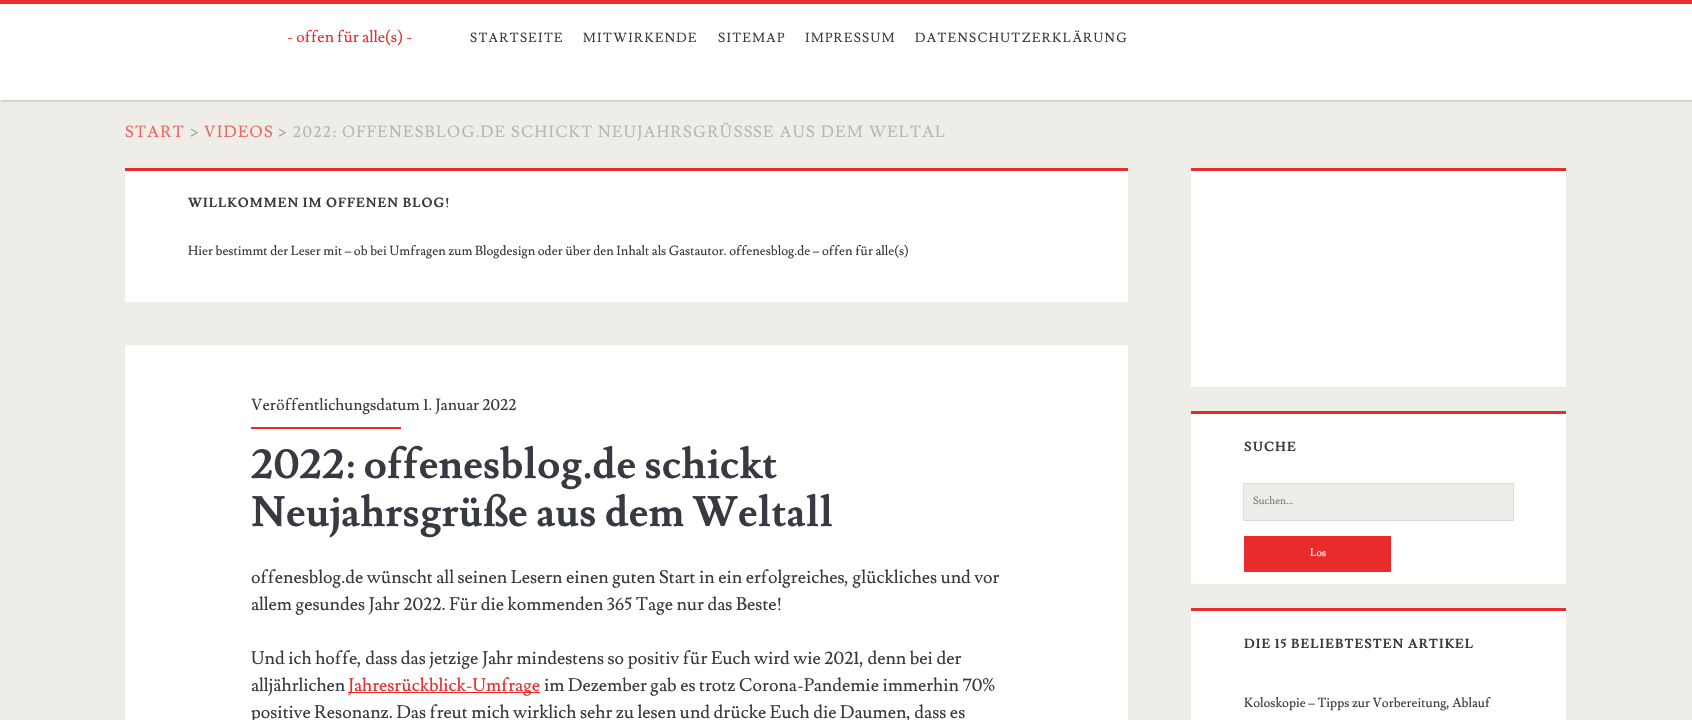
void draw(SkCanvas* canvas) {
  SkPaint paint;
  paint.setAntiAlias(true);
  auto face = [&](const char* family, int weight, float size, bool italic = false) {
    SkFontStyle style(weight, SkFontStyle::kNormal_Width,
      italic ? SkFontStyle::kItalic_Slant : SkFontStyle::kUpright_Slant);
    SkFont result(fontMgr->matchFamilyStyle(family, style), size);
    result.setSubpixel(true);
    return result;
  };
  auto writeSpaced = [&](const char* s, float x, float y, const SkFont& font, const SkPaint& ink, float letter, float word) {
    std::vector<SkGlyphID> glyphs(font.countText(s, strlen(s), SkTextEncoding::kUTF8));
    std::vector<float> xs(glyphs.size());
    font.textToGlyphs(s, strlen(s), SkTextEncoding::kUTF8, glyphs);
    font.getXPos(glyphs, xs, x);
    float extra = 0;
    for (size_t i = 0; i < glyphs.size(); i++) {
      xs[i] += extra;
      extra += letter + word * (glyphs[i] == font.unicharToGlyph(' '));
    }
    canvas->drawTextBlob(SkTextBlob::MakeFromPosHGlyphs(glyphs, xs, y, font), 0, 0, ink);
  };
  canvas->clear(0xffeeede8);
  paint.setColor(0x33000000);
  paint.setMaskFilter(SkMaskFilter::MakeBlur(kNormal_SkBlurStyle, 1));
  canvas->drawRect(SkRect::MakeXYWH(1, 1, 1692, 100), paint);
  paint.setMaskFilter(nullptr);
  {
    const struct { float x, y, w, h; SkColor color; } items[] = {
      {0, 4, 1692, 96, 0xffffffff},
      {0, 0, 1692, 4, 0xffe82c2b},
      {125, 171, 1003, 131, 0xffffffff},
      {125, 168, 1003, 3, 0xffe82c2b},
      {125, 345, 1003, 375, 0xffffffff},
      {251, 427, 150, 2, 0xffe82c2b},
      {348, 692, 192, 1, 0xffe82c2b},
      {1191, 171, 375, 216, 0xffffffff},
      {1191, 168, 375, 3, 0xffe82c2b},
      {1191, 414, 375, 170, 0xffffffff},
      {1191, 411, 375, 3, 0xffe82c2b},
      {1244, 484, 269, 36, 0xffeeede8},
    };
    for (auto [x, y, w, h, color] : items) {
      paint.setColor(color);
      canvas->drawRect(SkRect::MakeXYWH(x, y, w, h), paint);
    }
  }
  paint.setStroke(true);
  paint.setStrokeWidth(1);
  paint.setColor(0xffd9dcdf);
  canvas->drawRect(SkRect::MakeXYWH(1243.5f, 483.5f, 270, 37), paint);
  paint.setStroke(false);
  {
    const struct { float x, y, w, h; SkColor color; } items[] = {
      {1244, 536, 147, 36, 0xffe82c2b},
      {1191, 611, 375, 109, 0xffffffff},
      {1191, 608, 375, 3, 0xffe82c2b},
    };
    for (auto [x, y, w, h, color] : items) {
      paint.setColor(color);
      canvas->drawRect(SkRect::MakeXYWH(x, y, w, h), paint);
    }
  }
  auto f0 = face("Lusitana", 400, 16);
  canvas->drawString("- offen für alle(s) -", 287, 42, f0, paint);
  auto f1 = face("Lusitana", 400, 13);
  paint.setColor(0xff373b41);
  {
    const struct { const char* s; float x, y; } items[] = {
      {"STARTSEITE", 470, 42},
      {"MITWIRKENDE", 583, 42},
      {"SITEMAP", 718, 42},
      {"IMPRESSUM", 805, 42},
      {"DATENSCHUTZERKLÄRUNG", 915, 42},
    };
    for (auto [s, x, y] : items) {
      writeSpaced(s, x, y, f1, paint, 1.3f, 0);
    }
  }
  paint.setColor(0xffea6664);
  writeSpaced("START", 125, 137, f0, paint, 1.3f, 0);
  paint.setColor(0xff9e9f9f);
  writeSpaced(">", 190, 137, f0, paint, 1.3f, 0);
  paint.setColor(0xffea6664);
  writeSpaced("VIDEOS", 204, 137, f0, paint, 1.3f, 0);
  paint.setColor(0xff9e9f9f);
  writeSpaced(">", 278, 137, f0, paint, 1.3f, 0);
  paint.setColor(0xffb6b6b5);
  writeSpaced("2022: OFFENESBLOG.DE SCHICKT NEUJAHRSGRÜSS", 293, 137, f0, paint, 1.3f, 0);
  writeSpaced("SE AUS DEM WELTAL", 753, 137, f0, paint, 1.3f, 0.5f);
  auto f2 = face("Lusitana", 700, 13);
  paint.setColor(0xff373b41);
  writeSpaced("WILLKOMMEN IM OFFENEN BLOG!", 188, 207, f2, paint, 1.05f, 0);
  canvas->drawString("Hier bestimmt der Leser mit – ob bei Umfragen zum Blogdesign oder über den Inhalt als Gastautor. offenesblog.de – offen für alle(s)", 188, 255, f1, paint);
  canvas->drawString("Veröffentlichungsdatum 1. Januar 2022", 251, 410, f0, paint);
  auto f3 = face("Lusitana", 700, 42);
  canvas->drawString("2022: offenesblog.de schickt", 251, 478, f3, paint);
  canvas->drawString("Neujahrsgrüße aus dem Weltall", 251, 526, f3, paint);
  auto f4 = face("Lusitana", 400, 18);
  {
    const struct { const char* s; float x, y; } items[] = {
      {"offenesblog.de wünscht all seinen Lesern einen guten Start in ein erfolgreiches, glückliches und vor", 251, 583},
      {"allem gesundes Jahr 2022. Für die kommenden 365 Tage nur das Beste!", 251, 610},
      {"Und ich hoffe, dass das jetzige Jahr mindestens so positiv für Euch wird wie 2021, denn bei der", 251, 664},
      {"alljährlichen", 251, 691},
    };
    for (auto [s, x, y] : items) {
      canvas->drawString(s, x, y, f4, paint);
    }
  }
  paint.setColor(0xffe82c2b);
  canvas->drawString("Jahresrückblick-Umfrage", 348, 691, f4, paint);
  paint.setColor(0xff373b41);
  canvas->drawString("im Dezember gab es trotz Corona-Pandemie immerhin 70%", 544, 691, f4, paint);
  canvas->drawString("positive Resonanz. Das freut mich wirklich sehr zu lesen und drücke Euch die Daumen, dass es", 251, 718, f4, paint);
  writeSpaced("SUCHE", 1244, 451, f2, paint, 1.05f, 0);
  auto f5 = face("Lusitana", 400, 10.5f);
  paint.setColor(0xff7c7d7f);
  canvas->drawString("Suchen...", 1253, 504, f5, paint);
  paint.setColor(0xffffffff);
  canvas->drawString("Los", 1310, 556, f5, paint);
  paint.setColor(0xff373b41);
  writeSpaced("DIE 15 BELIEBTESTEN ARTIKEL", 1244, 648, f2, paint, 1.05f, 0);
  canvas->drawString("Koloskopie – Tipps zur Vorbereitung, Ablauf", 1244, 707, f1, paint);
}
